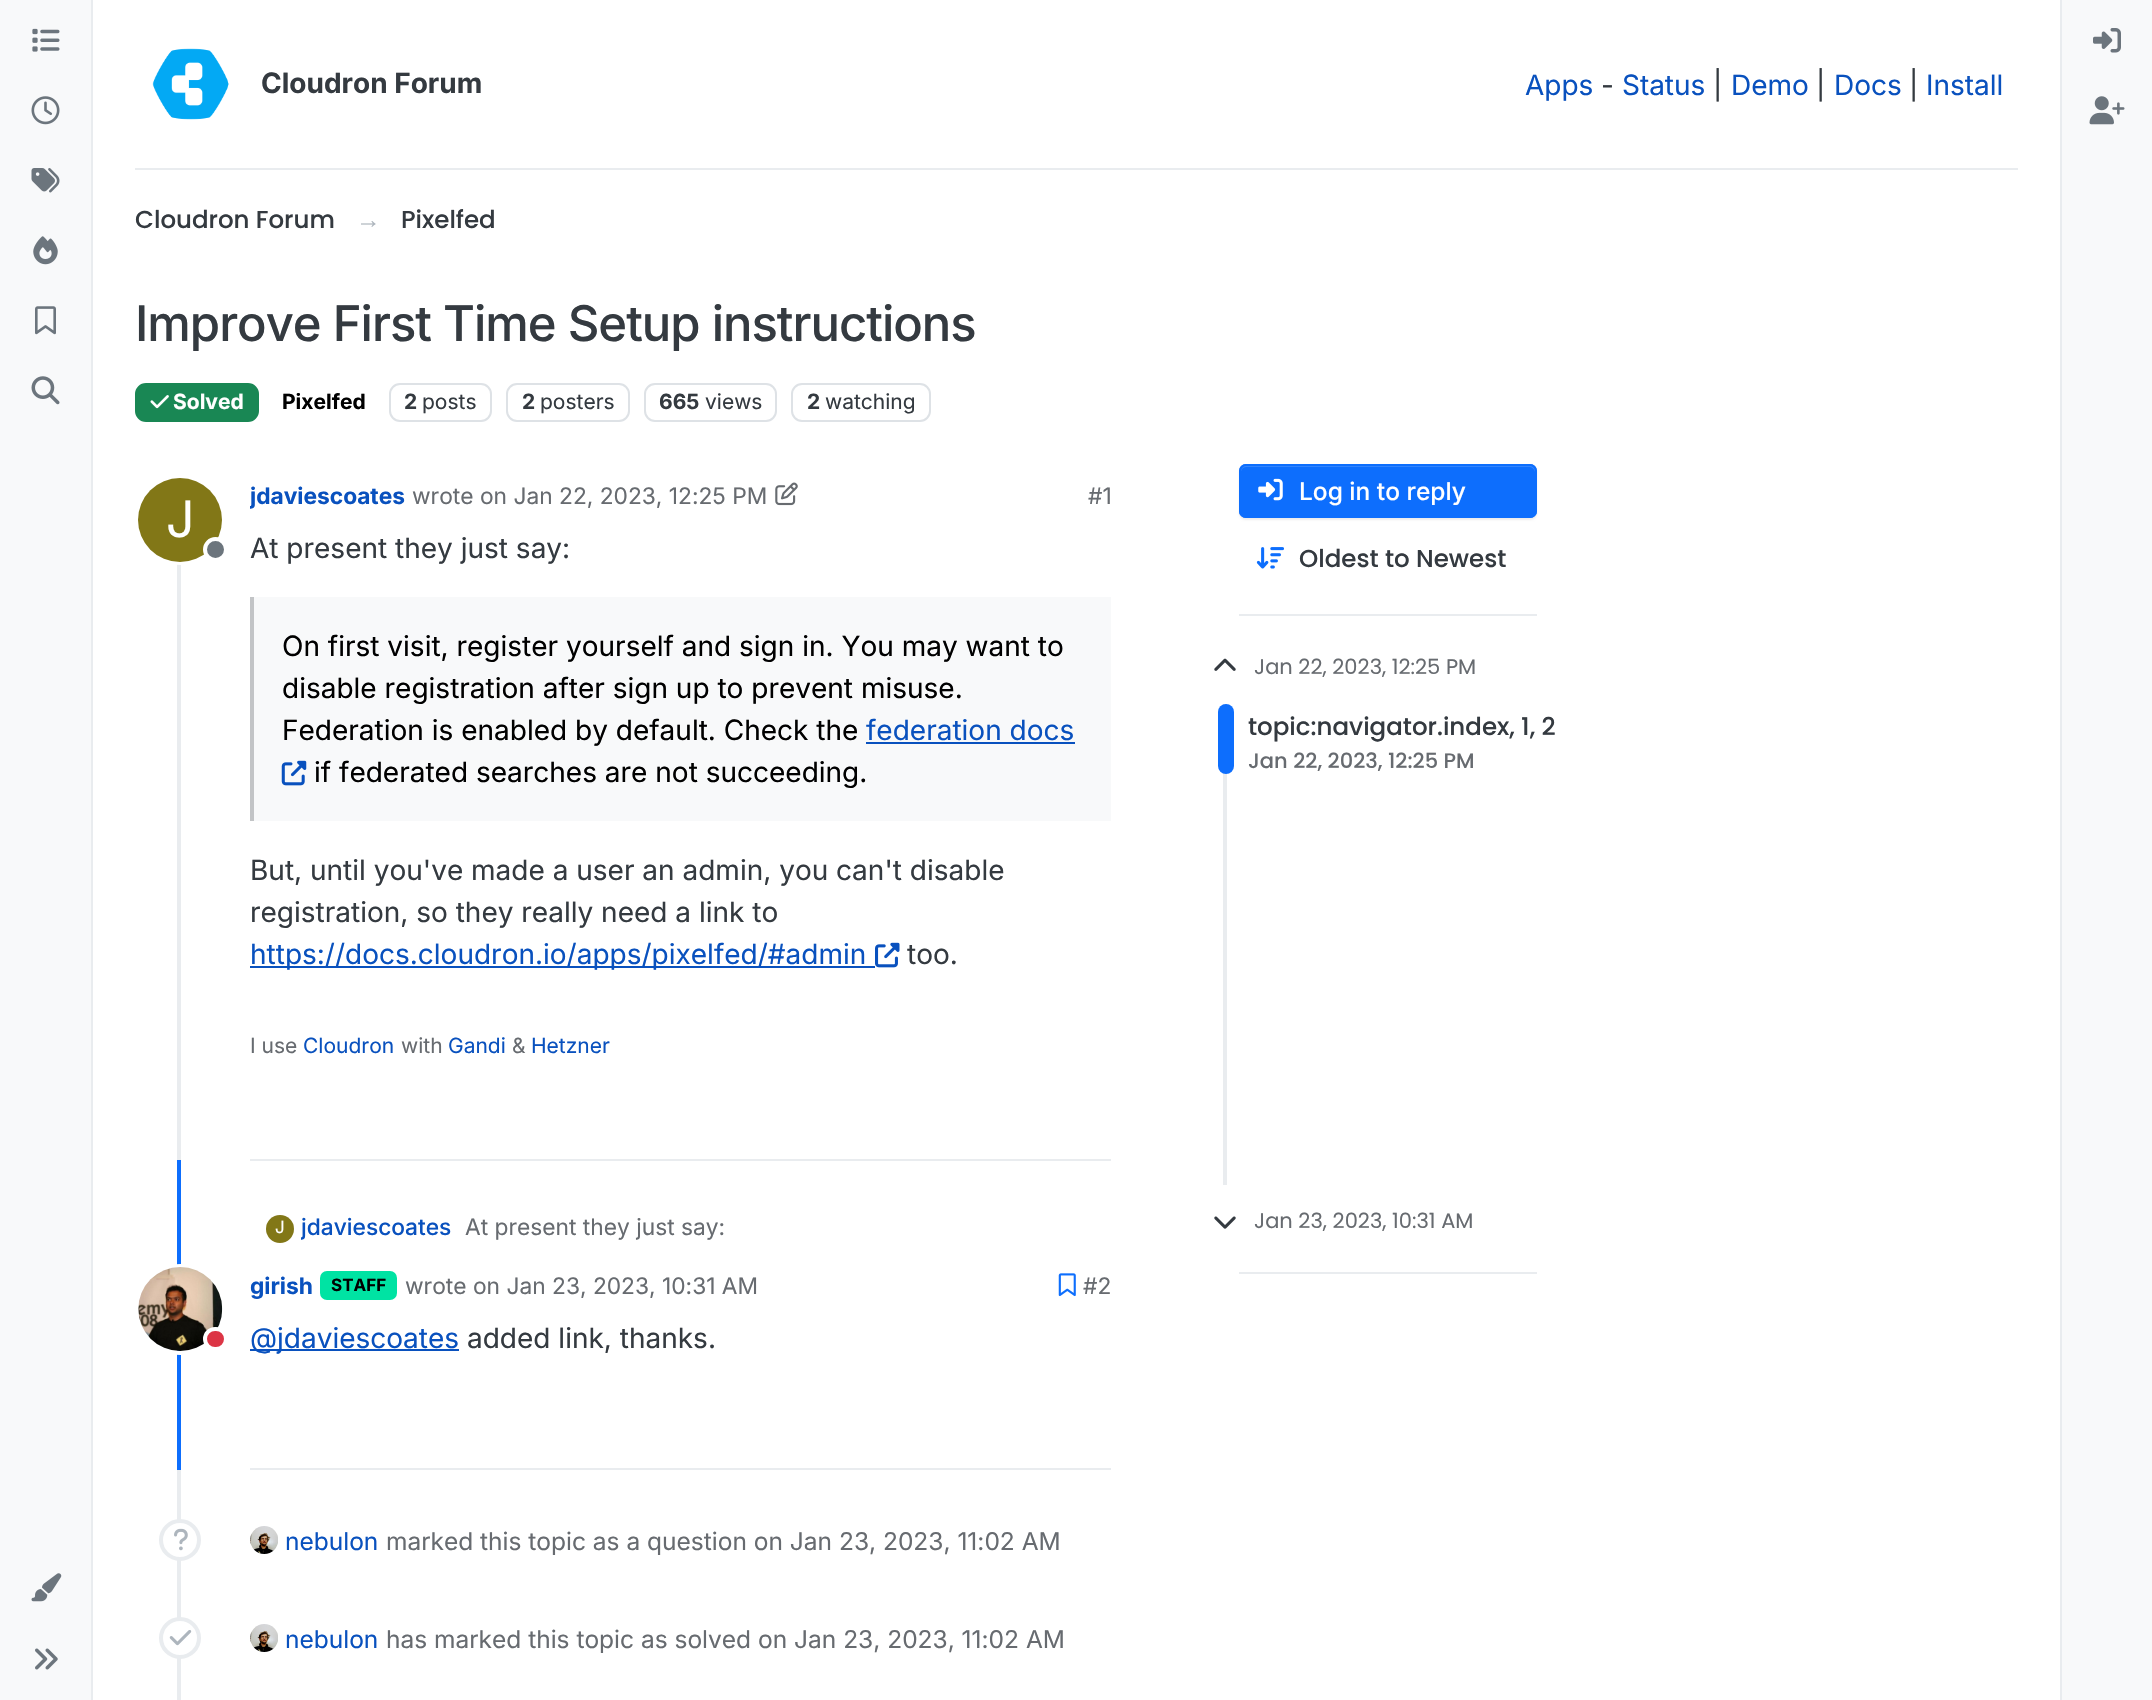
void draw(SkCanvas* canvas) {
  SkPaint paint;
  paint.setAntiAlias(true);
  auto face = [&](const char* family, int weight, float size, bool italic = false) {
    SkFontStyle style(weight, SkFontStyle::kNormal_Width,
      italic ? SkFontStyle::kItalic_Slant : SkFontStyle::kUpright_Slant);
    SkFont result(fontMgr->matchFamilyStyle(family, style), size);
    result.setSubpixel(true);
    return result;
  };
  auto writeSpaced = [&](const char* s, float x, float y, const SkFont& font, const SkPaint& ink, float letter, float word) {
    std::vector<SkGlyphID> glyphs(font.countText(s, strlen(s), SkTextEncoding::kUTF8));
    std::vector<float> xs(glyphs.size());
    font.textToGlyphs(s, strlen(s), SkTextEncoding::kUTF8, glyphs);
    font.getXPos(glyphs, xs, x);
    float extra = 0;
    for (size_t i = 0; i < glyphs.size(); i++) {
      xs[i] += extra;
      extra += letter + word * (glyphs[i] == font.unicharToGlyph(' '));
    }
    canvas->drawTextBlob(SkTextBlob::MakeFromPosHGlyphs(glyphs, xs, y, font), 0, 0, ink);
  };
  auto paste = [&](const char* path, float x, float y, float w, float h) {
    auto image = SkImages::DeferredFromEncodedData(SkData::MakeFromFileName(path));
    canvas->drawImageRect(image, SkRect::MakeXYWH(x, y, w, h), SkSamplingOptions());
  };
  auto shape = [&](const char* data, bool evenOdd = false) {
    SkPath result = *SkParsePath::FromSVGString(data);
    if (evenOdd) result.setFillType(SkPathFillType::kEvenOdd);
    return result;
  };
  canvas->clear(0xffffffff);
  paint.setColor(0xfff8f9fa);
  canvas->drawRect(SkRect::MakeXYWH(0, 0, 91, 1700), paint);
  paint.setColor(0xffe9ecef);
  canvas->drawRect(SkRect::MakeXYWH(91, 0, 2, 1700), paint);
  paste("img/1.png", 32, 28, 28, 24);
  paste("img/2.png", 31, 96, 29, 29);
  paste("img/3.png", 31, 168, 29, 25);
  paste("img/4.png", 33, 236, 25, 29);
  paste("img/5.png", 35, 306, 21, 29);
  paste("img/6.png", 31, 376, 29, 29);
  paste("img/7.png", 31, 1573, 31, 29);
  paste("img/8.png", 35, 1648, 23, 22);
  canvas->drawRect(SkRect::MakeXYWH(135, 168, 1883, 2), paint);
  paste("img/9.png", 152, 48, 77, 72);
  paint.setColor(0xff198754);
  canvas->drawRoundRect(SkRect::MakeXYWH(136, 384, 122, 37), 10, 10, paint);
  paint.setStroke(true);
  paint.setStrokeWidth(2);
  canvas->drawRoundRect(SkRect::MakeXYWH(136, 384, 122, 37), 10, 10, paint);
  paste("img/10.png", 150, 395, 19, 14);
  paint.setColor(0xffdee2e6);
  canvas->drawRoundRect(SkRect::MakeXYWH(390, 384, 101, 37), 10, 10, paint);
  canvas->drawRoundRect(SkRect::MakeXYWH(507, 384, 122, 37), 10, 10, paint);
  canvas->drawRoundRect(SkRect::MakeXYWH(645, 384, 131, 37), 10, 10, paint);
  canvas->drawRoundRect(SkRect::MakeXYWH(792, 384, 138, 37), 10, 10, paint);
  paint.setStroke(false);
  paint.setColor(0xffe9ecef);
  canvas->drawRect(SkRect::MakeXYWH(177, 478, 4, 682), paint);
  paint.setStroke(true);
  paint.setStrokeWidth(4);
  paint.setColor(0xffffffff);
  canvas->drawCircle(180.5f, 519.5f, 43.5f, paint);
  paint.setStroke(false);
  paint.setColor(0xff827717);
  canvas->drawCircle(180, 520, 42, paint);
  paint.setColor(0xff6c757d);
  canvas->drawCircle(215.5f, 549.5f, 10.5f, paint);
  paint.setStroke(true);
  paint.setColor(0xffffffff);
  canvas->drawCircle(215.5f, 549.5f, 10.5f, paint);
  paste("img/11.png", 775, 482, 23, 24);
  paint.setStroke(false);
  {
    const struct { float x, y, w, h; SkColor color; } items[] = {
      {254, 597, 857, 224, 0xfff8f9fa},
      {250, 597, 4, 224, 0xffc2c4c6},
      {866, 742, 209, 2, 0xff0951be},
    };
    for (auto [x, y, w, h, color] : items) {
      paint.setColor(color);
      canvas->drawRect(SkRect::MakeXYWH(x, y, w, h), paint);
    }
  }
  paste("img/12.png", 281, 760, 26, 26);
  canvas->drawRect(SkRect::MakeXYWH(250, 966, 625, 2), paint);
  paste("img/13.png", 875, 942, 25, 26);
  paint.setColor(0xffe9ecef);
  canvas->drawRect(SkRect::MakeXYWH(250, 1159, 861, 2), paint);
  paint.setColor(0xff0d6efd);
  canvas->drawRect(SkRect::MakeXYWH(177, 1160, 4, 310), paint);
  paint.setColor(0xff827717);
  canvas->drawCircle(280, 1229, 14, paint);
  paint.setStroke(true);
  paint.setColor(0xffffffff);
  canvas->drawCircle(180.5f, 1309.5f, 43.5f, paint);
  paste("img/14.png", 138, 1267, 85, 84);
  paint.setStroke(false);
  paint.setColor(0xffdc3545);
  canvas->drawRoundRect(SkRect::MakeXYWH(205, 1329, 21, 20), 10, 10, paint);
  paint.setStroke(true);
  paint.setColor(0xffffffff);
  canvas->drawRoundRect(SkRect::MakeXYWH(205, 1329, 21, 20), 10, 10, paint);
  paint.setStroke(false);
  paint.setColor(0xff00e3a3);
  canvas->drawRoundRect(SkRect::MakeXYWH(320, 1271, 77, 29), 7, 7, paint);
  paste("img/15.png", 1058, 1273, 18, 24);
  {
    const struct { float x, y, w, h; SkColor color; } items[] = {
      {250, 1349, 209, 2, 0xff0951be},
      {250, 1468, 861, 2, 0xffe9ecef},
      {177, 1470, 4, 230, 0xffe9ecef},
    };
    for (auto [x, y, w, h, color] : items) {
      paint.setColor(color);
      canvas->drawRect(SkRect::MakeXYWH(x, y, w, h), paint);
    }
  }
  paint.setColor(0xffffffff);
  canvas->drawCircle(180, 1540, 19, paint);
  paint.setStroke(true);
  paint.setColor(0xffe9ecef);
  canvas->drawCircle(180, 1540, 19, paint);
  paste("img/16.png", 174, 1528, 14, 23);
  paste("img/17.png", 250, 1526, 28, 28);
  paint.setStroke(false);
  paint.setColor(0xffffffff);
  canvas->drawCircle(180, 1638, 19, paint);
  paint.setStroke(true);
  paint.setColor(0xffe9ecef);
  canvas->drawCircle(180, 1638, 19, paint);
  paste("img/18.png", 169, 1630, 23, 16);
  paste("img/19.png", 250, 1624, 28, 28);
  paint.setStroke(false);
  paint.setColor(0x12000000);
  paint.setMaskFilter(SkMaskFilter::MakeBlur(kNormal_SkBlurStyle, 1));
  canvas->drawRoundRect(SkRect::MakeXYWH(1239, 466, 298, 54), 7, 7, paint);
  paint.setMaskFilter(nullptr);
  paint.setColor(0xff0d6efd);
  canvas->drawRoundRect(SkRect::MakeXYWH(1239, 464, 298, 54), 7, 7, paint);
  paint.setColor(0xff3184fd);
  canvas->drawPath(shape("M1246 467H1530C1532 467 1535 470 1535 472V471C1535 468 1533 466 1530 466H1246C1243 466 1241 468 1241 471V472C1241 470 1243 467 1246 467Z"), paint);
  paint.setStroke(true);
  paint.setStrokeWidth(2);
  paint.setColor(0xff0d6efd);
  canvas->drawRoundRect(SkRect::MakeXYWH(1240, 465, 296, 52), 6, 6, paint);
  paste("img/20.png", 1258, 478, 25, 23);
  paste("img/21.png", 1256, 547, 28, 22);
  paint.setStroke(false);
  paint.setColor(0xffe9ecef);
  canvas->drawRect(SkRect::MakeXYWH(1239, 614, 298, 2), paint);
  paste("img/22.png", 1214, 658, 22, 13);
  canvas->drawRect(SkRect::MakeXYWH(1223, 704, 4, 481), paint);
  paint.setColor(0xff0d6efd);
  canvas->drawRoundRect(SkRect::MakeXYWH(1218, 704, 16, 70), 8, 8, paint);
  paste("img/23.png", 1214, 1216, 22, 13);
  {
    const struct { float x, y, w, h; SkColor color; } items[] = {
      {1239, 1272, 298, 2, 0xffe9ecef},
      {2062, 0, 90, 1700, 0xfff8f9fa},
      {2060, 0, 2, 1700, 0xffe9ecef},
    };
    for (auto [x, y, w, h, color] : items) {
      paint.setColor(color);
      canvas->drawRect(SkRect::MakeXYWH(x, y, w, h), paint);
    }
  }
  paste("img/24.png", 2093, 28, 28, 25);
  paste("img/25.png", 2089, 96, 36, 29);
  auto f0 = face("Inter", 700, 28);
  paint.setColor(0xff343a40);
  canvas->drawString("Cloudron Forum", 261, 93, f0, paint);
  auto f1 = face("Inter", 400, 28);
  paint.setColor(0xff0951be);
  canvas->drawString("Apps", 1525, 95, f1, paint);
  paint.setColor(0xff343a40);
  canvas->drawString("-", 1601, 95, f1, paint);
  paint.setColor(0xff0951be);
  canvas->drawString("Status", 1622, 95, f1, paint);
  paint.setColor(0xff343a40);
  canvas->drawString("|", 1713, 95, f1, paint);
  paint.setColor(0xff0951be);
  canvas->drawString("Demo", 1731, 95, f1, paint);
  paint.setColor(0xff343a40);
  canvas->drawString("|", 1816, 95, f1, paint);
  paint.setColor(0xff0951be);
  canvas->drawString("Docs", 1834, 95, f1, paint);
  paint.setColor(0xff343a40);
  canvas->drawString("|", 1909, 95, f1, paint);
  paint.setColor(0xff0951be);
  canvas->drawString("Install", 1926, 95, f1, paint);
  auto f2 = face("Poppins", 500, 24.5f);
  paint.setColor(0xff343a40);
  canvas->drawString("Cloudron Forum", 135, 228, f2, paint);
  auto f3 = face("Liberation Sans", 400, 24.5f);
  paint.setColor(0xffadb5bd);
  canvas->drawString("→", 356, 228, f3, paint);
  paint.setColor(0xff343a40);
  canvas->drawString("Pixelfed", 401, 228, f2, paint);
  auto f4 = face("Inter", 500, 49);
  writeSpaced("Improve First Time Setup instructions", 135, 341, f4, paint, -1, 0);
  auto f5 = face("Inter", 700, 21);
  paint.setColor(0xffffffff);
  canvas->drawString("Solved", 173, 409, f5, paint);
  paint.setColor(0xff000000);
  canvas->drawString("Pixelfed", 282, 409, f5, paint);
  paint.setColor(0xff343a40);
  canvas->drawString("2", 404, 409, f5, paint);
  auto f6 = face("Inter", 400, 21);
  canvas->drawString("posts", 422, 409, f6, paint);
  canvas->drawString("2", 522, 409, f5, paint);
  canvas->drawString("posters", 540, 409, f6, paint);
  canvas->drawString("665", 659, 409, f5, paint);
  canvas->drawString("views", 705, 409, f6, paint);
  canvas->drawString("2", 807, 409, f5, paint);
  canvas->drawString("watching", 825, 409, f6, paint);
  auto f7 = face("Inter", 400, 50);
  paint.setColor(0xffffffff);
  canvas->drawString("J", 166, 537, f7, paint);
  canvas->save();
  canvas->clipRect(SkRect::MakeXYWH(250, 478, 156, 35));
  auto f8 = face("Inter", 700, 22.75f);
  paint.setColor(0xff0951be);
  canvas->drawString("jdaviescoates", 250, 504, f8, paint);
  canvas->restore();
  auto f9 = face("Inter", 400, 22.75f);
  paint.setColor(0xff676b70);
  canvas->drawString("wrote on Jan 22, 2023, 12:25 PM", 412, 504, f9, paint);
  canvas->drawString("#1", 1088, 504, f9, paint);
  paint.setColor(0xff343a40);
  canvas->drawString("At present they just say:", 250, 558, f1, paint);
  paint.setColor(0xff000000);
  {
    const struct { const char* s; float x, y; } items[] = {
      {"On first visit, register yourself and sign in. You may want to", 282, 656},
      {"disable registration after sign up to prevent misuse.", 282, 698},
      {"Federation is enabled by default. Check the", 282, 740},
    };
    for (auto [s, x, y] : items) {
      canvas->drawString(s, x, y, f1, paint);
    }
  }
  paint.setColor(0xff0951be);
  canvas->drawString("federation docs", 866, 740, f1, paint);
  paint.setColor(0xff000000);
  canvas->drawString("if federated searches are not succeeding.", 314, 782, f1, paint);
  paint.setColor(0xff343a40);
  canvas->drawString("But, until you've made a user an admin, you can't disable", 250, 880, f1, paint);
  canvas->drawString("registration, so they really need a link to", 250, 922, f1, paint);
  paint.setColor(0xff0951be);
  canvas->drawString("https://docs.cloudron.io/apps/pixelfed/#admin", 250, 964, f1, paint);
  paint.setColor(0xff343a40);
  canvas->drawString("too.", 907, 964, f1, paint);
  paint.setColor(0xff676b70);
  canvas->drawString("I use", 250, 1053, f6, paint);
  paint.setColor(0xff0951be);
  canvas->drawString("Cloudron", 303, 1053, f6, paint);
  paint.setColor(0xff676b70);
  canvas->drawString("with", 401, 1053, f6, paint);
  paint.setColor(0xff0951be);
  canvas->drawString("Gandi", 448, 1053, f6, paint);
  paint.setColor(0xff676b70);
  canvas->drawString("&", 512, 1053, f6, paint);
  paint.setColor(0xff0951be);
  canvas->drawString("Hetzner", 531, 1053, f6, paint);
  auto f10 = face("Inter", 400, 17);
  paint.setColor(0xffffffff);
  canvas->drawString("J", 275, 1233, f10, paint);
  canvas->save();
  canvas->clipRect(SkRect::MakeXYWH(301, 1211, 151, 33));
  auto f11 = face("Inter", 500, 22.75f);
  paint.setColor(0xff0951be);
  canvas->drawString("jdaviescoates", 301, 1235, f11, paint);
  canvas->restore();
  paint.setColor(0xff676b70);
  canvas->drawString("At present they just say:", 465, 1235, f9, paint);
  paint.setColor(0xff0951be);
  canvas->drawString("girish", 250, 1294, f8, paint);
  auto f12 = face("Inter", 700, 17);
  paint.setColor(0xff000000);
  canvas->drawString("STAFF", 331, 1291, f12, paint);
  paint.setColor(0xff676b70);
  canvas->drawString("wrote on Jan 23, 2023, 10:31 AM", 405, 1294, f9, paint);
  canvas->drawString("#2", 1083, 1294, f9, paint);
  paint.setColor(0xff0951be);
  canvas->drawString("@jdaviescoates", 250, 1348, f1, paint);
  paint.setColor(0xff343a40);
  canvas->drawString("added link, thanks.", 467, 1348, f1, paint);
  auto f13 = face("Inter", 400, 24.5f);
  paint.setColor(0xff0951be);
  canvas->drawString("nebulon", 285, 1550, f13, paint);
  paint.setColor(0xff676b70);
  canvas->drawString("marked this topic as a question on Jan 23, 2023, 11:02 AM", 386, 1550, f13, paint);
  paint.setColor(0xff0951be);
  canvas->drawString("nebulon", 285, 1648, f13, paint);
  paint.setColor(0xff676b70);
  canvas->drawString("has marked this topic as solved on Jan 23, 2023, 11:02 AM", 386, 1648, f13, paint);
  auto f14 = face("Inter", 500, 24.5f);
  paint.setColor(0xffffffff);
  canvas->drawString("Log in to reply", 1299, 500, f14, paint);
  paint.setColor(0xff343a40);
  canvas->drawString("Oldest to Newest", 1299, 567, f2, paint);
  auto f15 = face("Poppins", 400, 21);
  paint.setColor(0xff676b70);
  canvas->drawString("Jan 22, 2023, 12:25 PM", 1254, 674, f15, paint);
  paint.setColor(0xff343a40);
  canvas->drawString("topic:navigator.index, 1, 2", 1248, 735, f2, paint);
  auto f16 = face("Poppins", 500, 21);
  paint.setColor(0xff676b70);
  canvas->drawString("Jan 22, 2023, 12:25 PM", 1248, 768, f16, paint);
  canvas->drawString("Jan 23, 2023, 10:31 AM", 1254, 1228, f15, paint);
}
